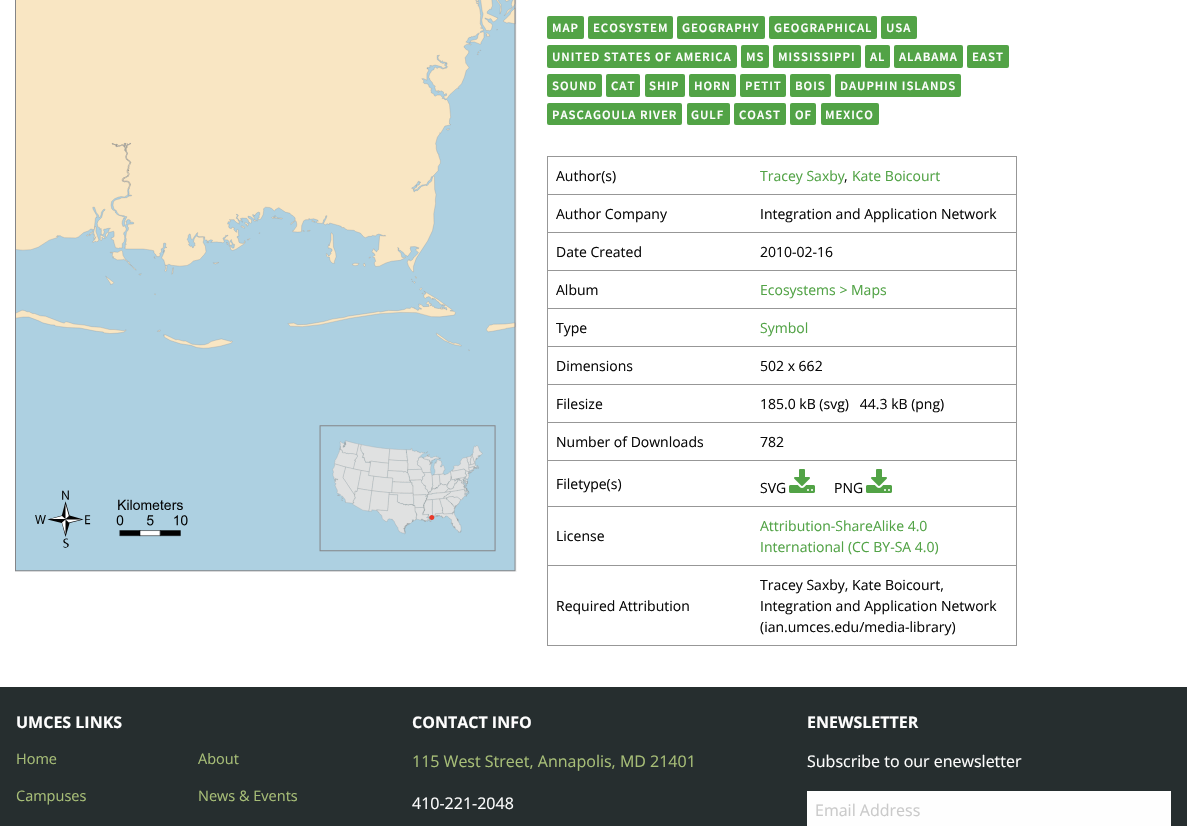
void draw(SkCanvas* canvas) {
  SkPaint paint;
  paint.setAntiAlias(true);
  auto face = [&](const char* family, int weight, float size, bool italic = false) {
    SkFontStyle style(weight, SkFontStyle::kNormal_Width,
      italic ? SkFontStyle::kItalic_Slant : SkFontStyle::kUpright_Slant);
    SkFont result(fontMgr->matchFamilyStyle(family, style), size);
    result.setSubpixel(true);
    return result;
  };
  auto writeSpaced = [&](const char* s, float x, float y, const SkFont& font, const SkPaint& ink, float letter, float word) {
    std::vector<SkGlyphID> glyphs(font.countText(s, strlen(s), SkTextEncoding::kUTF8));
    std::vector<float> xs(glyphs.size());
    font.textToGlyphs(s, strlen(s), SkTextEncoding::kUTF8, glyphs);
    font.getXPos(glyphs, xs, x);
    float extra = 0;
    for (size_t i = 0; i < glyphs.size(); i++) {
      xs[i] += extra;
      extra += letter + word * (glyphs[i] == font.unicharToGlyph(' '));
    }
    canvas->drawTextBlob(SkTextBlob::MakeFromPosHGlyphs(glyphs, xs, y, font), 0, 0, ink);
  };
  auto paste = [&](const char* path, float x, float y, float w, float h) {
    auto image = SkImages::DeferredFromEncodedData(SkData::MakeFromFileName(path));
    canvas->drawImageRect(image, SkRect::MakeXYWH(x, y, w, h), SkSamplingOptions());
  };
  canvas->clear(0xffffffff);
  paint.setColor(0xfff6f6f6);
  canvas->drawRect(SkRect::MakeXYWH(15, 0, 502, 572), paint);
  paste("img/1.png", 15, 0, 501, 572);
  paint.setColor(0xff52a346);
  canvas->drawRoundRect(SkRect::MakeXYWH(547, 16, 37, 23), 2, 2, paint);
  canvas->drawRoundRect(SkRect::MakeXYWH(588, 16, 85, 23), 2, 2, paint);
  canvas->drawRoundRect(SkRect::MakeXYWH(677, 16, 88, 23), 2, 2, paint);
  canvas->drawRoundRect(SkRect::MakeXYWH(769, 16, 108, 23), 2, 2, paint);
  canvas->drawRoundRect(SkRect::MakeXYWH(881, 16, 36, 23), 2, 2, paint);
  canvas->drawRoundRect(SkRect::MakeXYWH(547, 45, 190, 23), 2, 2, paint);
  canvas->drawRoundRect(SkRect::MakeXYWH(741, 45, 28, 23), 2, 2, paint);
  canvas->drawRoundRect(SkRect::MakeXYWH(773, 45, 88, 23), 2, 2, paint);
  canvas->drawRoundRect(SkRect::MakeXYWH(865, 45, 25, 23), 2, 2, paint);
  canvas->drawRoundRect(SkRect::MakeXYWH(894, 45, 69, 23), 2, 2, paint);
  canvas->drawRoundRect(SkRect::MakeXYWH(967, 45, 42, 23), 2, 2, paint);
  canvas->drawRoundRect(SkRect::MakeXYWH(547, 74, 55, 23), 2, 2, paint);
  canvas->drawRoundRect(SkRect::MakeXYWH(606, 74, 34, 23), 2, 2, paint);
  canvas->drawRoundRect(SkRect::MakeXYWH(645, 74, 40, 23), 2, 2, paint);
  canvas->drawRoundRect(SkRect::MakeXYWH(689, 74, 47, 23), 2, 2, paint);
  canvas->drawRoundRect(SkRect::MakeXYWH(740, 74, 46, 23), 2, 2, paint);
  canvas->drawRoundRect(SkRect::MakeXYWH(790, 74, 41, 23), 2, 2, paint);
  canvas->drawRoundRect(SkRect::MakeXYWH(835, 74, 126, 23), 2, 2, paint);
  canvas->drawRoundRect(SkRect::MakeXYWH(547, 103, 135, 22), 2, 2, paint);
  canvas->drawRoundRect(SkRect::MakeXYWH(687, 103, 43, 22), 2, 2, paint);
  canvas->drawRoundRect(SkRect::MakeXYWH(734, 103, 52, 22), 2, 2, paint);
  canvas->drawRoundRect(SkRect::MakeXYWH(790, 103, 26, 22), 2, 2, paint);
  canvas->drawRoundRect(SkRect::MakeXYWH(821, 103, 58, 22), 2, 2, paint);
  {
    const struct { float x, y, w, h; SkColor color; } items[] = {
      {547, 156, 470, 1, 0xff979797},
      {547, 194, 470, 1, 0xff979797},
      {547, 232, 470, 1, 0xff979797},
      {547, 270, 470, 1, 0xff979797},
      {547, 308, 470, 1, 0xff979797},
      {547, 346, 470, 1, 0xff979797},
      {547, 384, 470, 1, 0xff979797},
      {547, 422, 470, 1, 0xff979797},
      {547, 460, 470, 1, 0xff979797},
      {547, 506, 470, 1, 0xff979797},
      {547, 565, 470, 1, 0xff979797},
      {1016, 565, 1, 81, 0xff979797},
      {547, 645, 470, 1, 0xff979797},
      {547, 565, 1, 81, 0xff979797},
      {547, 506, 1, 60, 0xff979797},
      {547, 460, 1, 47, 0xff979797},
      {547, 422, 1, 39, 0xff979797},
      {547, 384, 1, 39, 0xff979797},
      {547, 346, 1, 39, 0xff979797},
      {547, 308, 1, 39, 0xff979797},
      {547, 270, 1, 39, 0xff979797},
      {547, 232, 1, 39, 0xff979797},
      {547, 194, 1, 39, 0xff979797},
      {547, 156, 1, 39, 0xff979797},
      {1016, 506, 1, 60, 0xff979797},
      {1016, 460, 1, 47, 0xff979797},
      {1016, 422, 1, 39, 0xff979797},
      {1016, 384, 1, 39, 0xff979797},
      {1016, 346, 1, 39, 0xff979797},
      {1016, 308, 1, 39, 0xff979797},
      {1016, 270, 1, 39, 0xff979797},
      {1016, 232, 1, 39, 0xff979797},
      {1016, 194, 1, 39, 0xff979797},
      {1016, 156, 1, 39, 0xff979797},
    };
    for (auto [x, y, w, h, color] : items) {
      paint.setColor(color);
      canvas->drawRect(SkRect::MakeXYWH(x, y, w, h), paint);
    }
  }
  paste("img/2.png", 789, 469, 26, 24);
  paste("img/2.png", 866, 469, 26, 24);
  paint.setColor(0xff262e2f);
  canvas->drawRect(SkRect::MakeXYWH(0, 687, 1187, 139), paint);
  paint.setColor(0xfffefefe);
  canvas->drawRect(SkRect::MakeXYWH(807, 791, 364, 35), paint);
  auto f0 = face("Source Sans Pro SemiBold", 600, 12.75f);
  {
    const struct { const char* s; float x, y; } items[] = {
      {"MAP", 552, 32},
      {"ECOSYSTEM", 593, 32},
      {"GEOGRAPHY", 682, 32},
      {"GEOGRAPHICAL", 774, 32},
      {"USA", 886, 32},
      {"UNITED STATES OF AMERICA", 552, 61},
      {"MS", 746, 61},
      {"MISSISSIPPI", 778, 61},
      {"AL", 870, 61},
      {"ALABAMA", 899, 61},
      {"EAST", 972, 61},
      {"SOUND", 552, 90},
      {"CAT", 611, 90},
      {"SHIP", 649, 90},
      {"HORN", 694, 90},
      {"PETIT", 745, 90},
      {"BOIS", 795, 90},
      {"DAUPHIN ISLANDS", 840, 90},
      {"PASCAGOULA RIVER", 552, 119},
      {"GULF", 691, 119},
      {"COAST", 739, 119},
      {"OF", 795, 119},
      {"MEXICO", 825, 119},
    };
    for (auto [s, x, y] : items) {
      writeSpaced(s, x, y, f0, paint, 1, 0);
    }
  }
  auto f1 = face("Open Sans", 400, 14);
  paint.setColor(0xff0a0a0a);
  canvas->drawString("Author(s)", 556, 181, f1, paint);
  paint.setColor(0xff52a346);
  canvas->drawString("Tracey Saxby", 760, 181, f1, paint);
  paint.setColor(0xff0a0a0a);
  canvas->drawString(",", 844, 181, f1, paint);
  paint.setColor(0xff52a346);
  canvas->drawString("Kate Boicourt", 852, 181, f1, paint);
  paint.setColor(0xff0a0a0a);
  {
    const struct { const char* s; float x, y; } items[] = {
      {"Author Company", 556, 219},
      {"Integration and Application Network", 760, 219},
      {"Date Created", 556, 257},
      {"2010-02-16", 760, 257},
      {"Album", 556, 295},
    };
    for (auto [s, x, y] : items) {
      canvas->drawString(s, x, y, f1, paint);
    }
  }
  paint.setColor(0xff52a346);
  canvas->drawString("Ecosystems > Maps", 760, 295, f1, paint);
  paint.setColor(0xff0a0a0a);
  canvas->drawString("Type", 556, 333, f1, paint);
  paint.setColor(0xff52a346);
  canvas->drawString("Symbol", 760, 333, f1, paint);
  paint.setColor(0xff0a0a0a);
  {
    const struct { const char* s; float x, y; } items[] = {
      {"Dimensions", 556, 371},
      {"502 x 662", 760, 371},
      {"Filesize", 556, 409},
      {"185.0 kB (svg)   44.3 kB (png)", 760, 409},
      {"Number of Downloads", 556, 447},
      {"782", 760, 447},
      {"Filetype(s)", 556, 489},
      {"SVG", 760, 493},
      {"PNG", 834, 493},
      {"License", 556, 541},
    };
    for (auto [s, x, y] : items) {
      canvas->drawString(s, x, y, f1, paint);
    }
  }
  paint.setColor(0xff52a346);
  canvas->drawString("Attribution-ShareAlike 4.0", 760, 531, f1, paint);
  canvas->drawString("International (CC BY-SA 4.0)", 760, 552, f1, paint);
  paint.setColor(0xff0a0a0a);
  {
    const struct { const char* s; float x, y; } items[] = {
      {"Required Attribution", 556, 611},
      {"Tracey Saxby, Kate Boicourt,", 760, 590},
      {"Integration and Application Network", 760, 611},
      {"(ian.umces.edu/media-library)", 760, 632},
    };
    for (auto [s, x, y] : items) {
      canvas->drawString(s, x, y, f1, paint);
    }
  }
  auto f2 = face("Open Sans", 700, 16);
  paint.setColor(0xfffefefe);
  canvas->drawString("UMCES LINKS", 16, 728, f2, paint);
  auto f3 = face("Open Sans", 400, 14.5f);
  paint.setColor(0xffa7be77);
  {
    const struct { const char* s; float x, y; } items[] = {
      {"Home", 16, 764},
      {"About", 198, 764},
      {"Campuses", 16, 801},
      {"News & Events", 198, 801},
    };
    for (auto [s, x, y] : items) {
      canvas->drawString(s, x, y, f3, paint);
    }
  }
  paint.setColor(0xfffefefe);
  canvas->drawString("CONTACT INFO", 412, 728, f2, paint);
  auto f4 = face("Open Sans", 400, 16);
  paint.setColor(0xffa7be77);
  canvas->drawString("115 West Street, Annapolis, MD 21401", 412, 767, f4, paint);
  paint.setColor(0xfffefefe);
  canvas->drawString("410-221-2048", 412, 809, f4, paint);
  canvas->drawString("ENEWSLETTER", 807, 728, f2, paint);
  canvas->drawString("Subscribe to our enewsletter", 807, 767, f4, paint);
  paint.setColor(0xffcacaca);
  canvas->drawString("Email Address", 815, 816, f4, paint);
}
